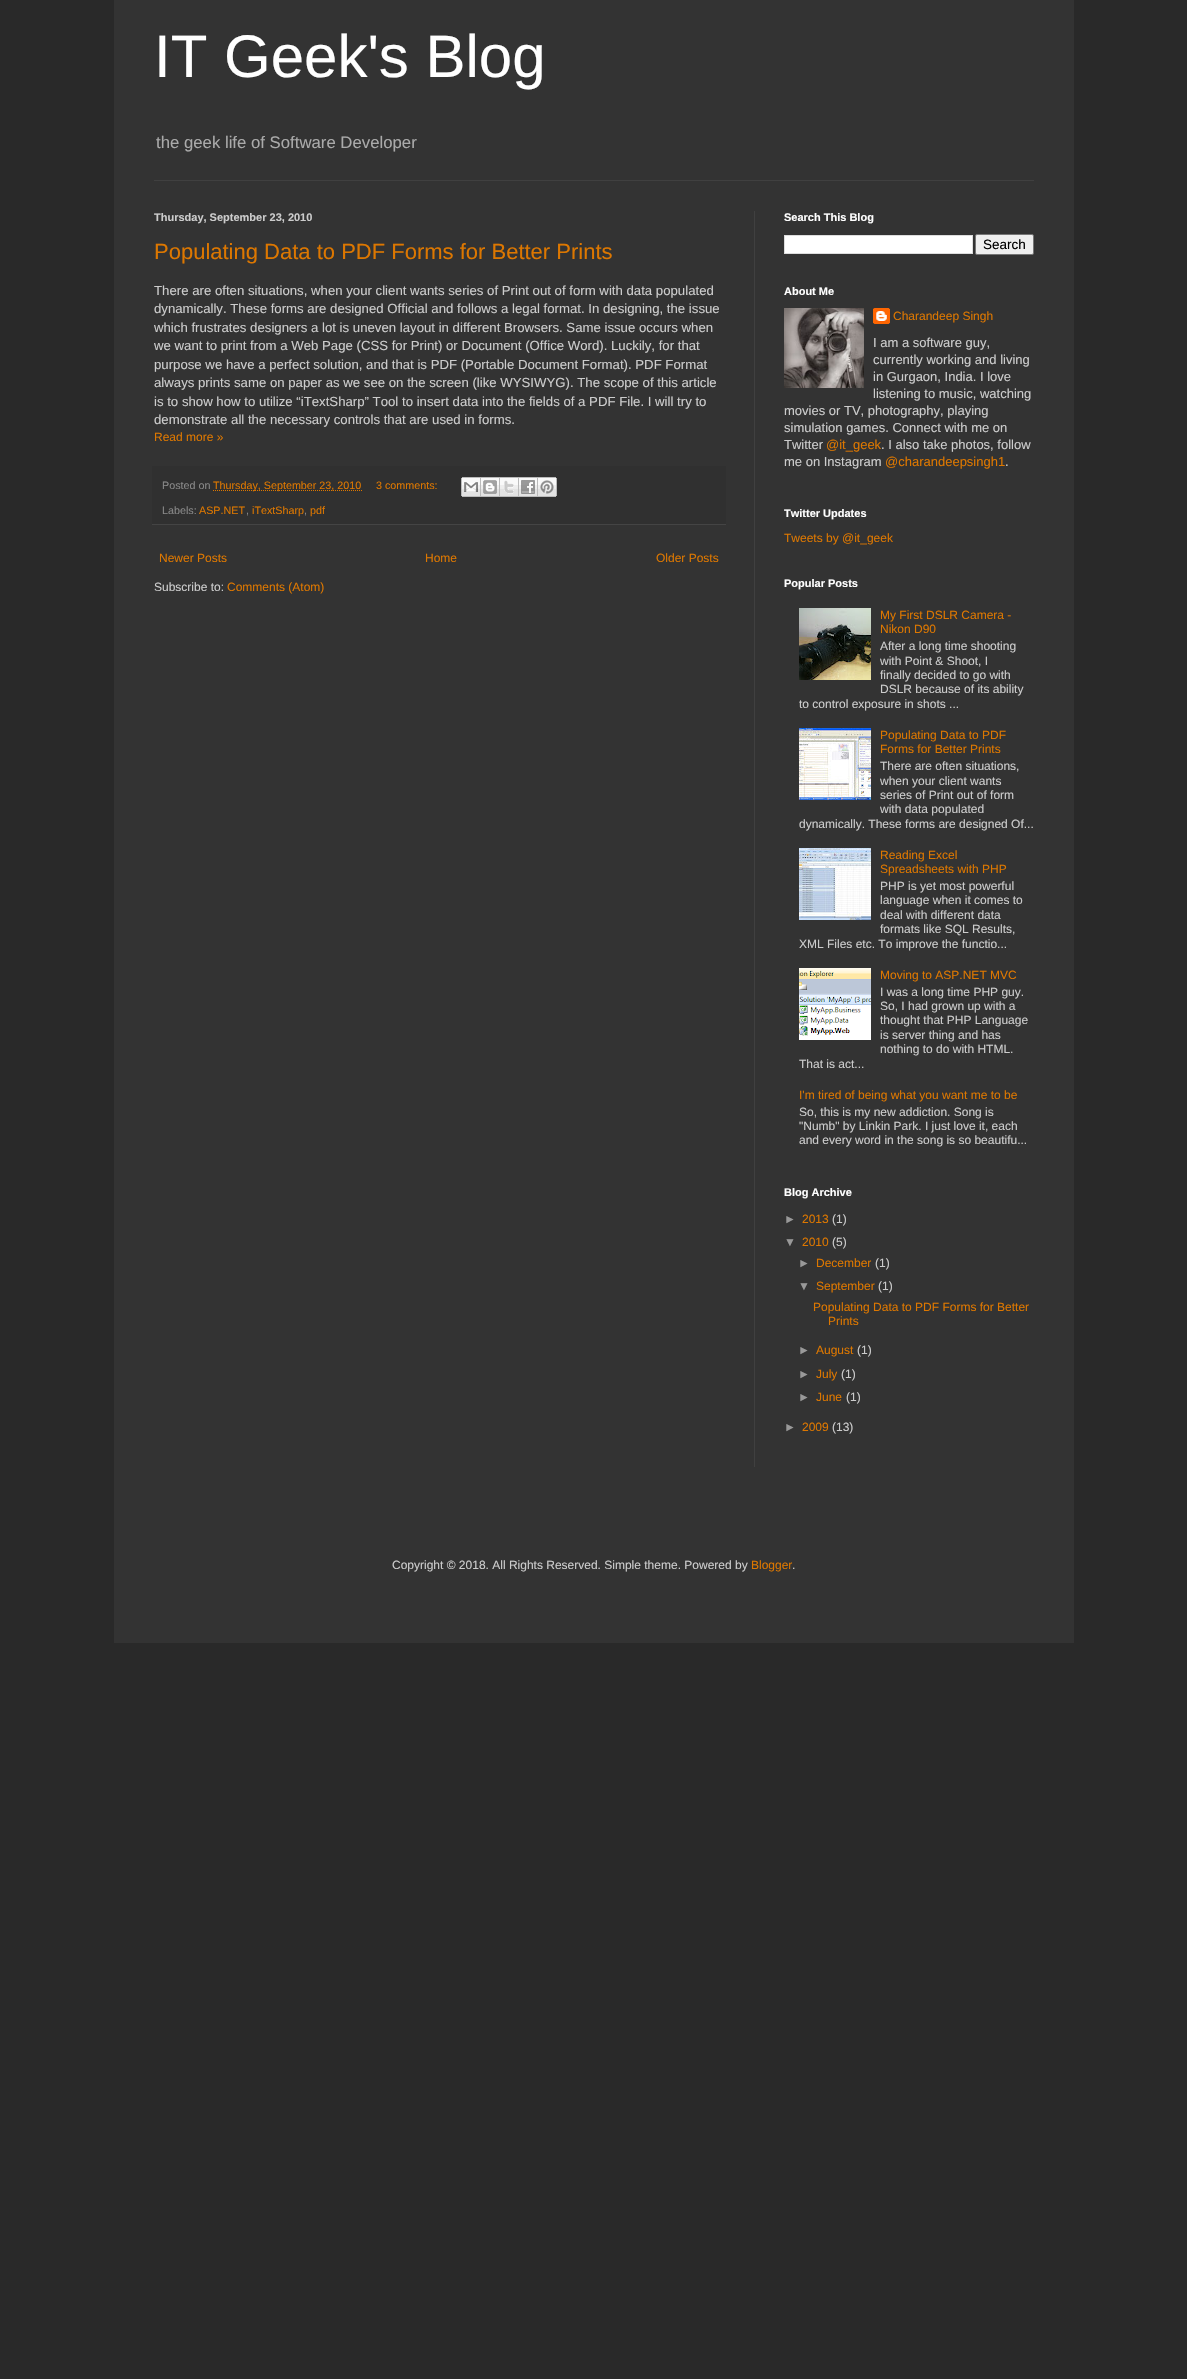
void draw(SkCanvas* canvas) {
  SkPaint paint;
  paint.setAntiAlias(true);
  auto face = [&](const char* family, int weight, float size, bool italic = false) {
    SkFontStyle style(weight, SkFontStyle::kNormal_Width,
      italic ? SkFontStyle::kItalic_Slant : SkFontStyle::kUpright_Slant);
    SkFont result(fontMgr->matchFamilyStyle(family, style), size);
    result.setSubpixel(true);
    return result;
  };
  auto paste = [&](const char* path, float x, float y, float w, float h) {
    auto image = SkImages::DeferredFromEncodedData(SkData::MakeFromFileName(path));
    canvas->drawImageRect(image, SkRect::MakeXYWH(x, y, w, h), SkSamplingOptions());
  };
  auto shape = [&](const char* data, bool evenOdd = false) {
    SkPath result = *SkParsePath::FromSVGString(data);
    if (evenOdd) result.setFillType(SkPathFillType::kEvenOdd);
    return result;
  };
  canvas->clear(0xff292929);
  {
    const struct { float x, y, w, h; SkColor color; } items[] = {
      {114, 0, 960, 1643, 0xff333333},
      {154, 180, 880, 1, 0xff404040},
      {754, 211, 1, 1256, 0xff404040},
      {152, 466, 574, 58, 0xff303030},
      {152, 524, 574, 1, 0xff444444},
    };
    for (auto [x, y, w, h, color] : items) {
      paint.setColor(color);
      canvas->drawRect(SkRect::MakeXYWH(x, y, w, h), paint);
    }
  }
  paint.setStroke(true);
  paint.setStrokeWidth(1);
  paint.setColor(0xffdd7700);
  paint.setPathEffect(SkDashPathEffect::Make({{1, 1}}, 0));
  canvas->drawPath(shape("M213 490.5H362"), paint);
  paint.setPathEffect(nullptr);
  paste("img/1.png", 461, 477, 20, 20);
  paste("img/2.png", 481, 477, 19, 20);
  paste("img/3.png", 500, 477, 19, 20);
  paste("img/4.png", 519, 477, 19, 20);
  paste("img/5.png", 538, 477, 19, 20);
  paint.setStroke(false);
  paint.setColor(0xffffffff);
  canvas->drawRect(SkRect::MakeXYWH(784.5f, 235.5f, 188, 18), paint);
  paint.setStroke(true);
  paint.setColor(0xffdddddd);
  canvas->drawRect(SkRect::MakeXYWH(784.5f, 235.5f, 188, 18), paint);
  paint.setStroke(false);
  paint.setColor(0xffefefef);
  canvas->drawRoundRect(SkRect::MakeXYWH(975.5f, 234.5f, 58, 20), 1.5f, 1.5f, paint);
  paint.setStroke(true);
  paint.setColor(0xff767676);
  canvas->drawRoundRect(SkRect::MakeXYWH(975.5f, 234.5f, 58, 20), 1.5f, 1.5f, paint);
  paste("img/6.png", 784, 308, 80, 80);
  paste("img/7.png", 873, 308, 17, 16);
  paste("img/8.png", 799, 608, 72, 72);
  paste("img/9.png", 799, 728, 72, 72);
  paste("img/10.png", 799, 848, 72, 72);
  paste("img/11.png", 799, 968, 72, 72);
  auto f0 = face("Liberation Sans", 400, 60);
  paint.setStroke(false);
  paint.setColor(0xffffffff);
  canvas->drawString("IT Geek's Blog", 154, 77, f0, paint);
  auto f1 = face("Liberation Sans", 400, 16.75f);
  paint.setColor(0xffaaaaaa);
  canvas->drawString("the geek life of Software Developer", 156, 148, f1, paint);
  auto f2 = face("Liberation Sans", 700, 11);
  paint.setColor(0xffcccccc);
  canvas->drawString("Thursday, September 23, 2010", 154, 221, f2, paint);
  auto f3 = face("Liberation Sans", 400, 22);
  paint.setColor(0xffdd7700);
  canvas->drawString("Populating Data to PDF Forms for Better Prints", 154, 259, f3, paint);
  auto f4 = face("Liberation Sans", 400, 13.2f);
  paint.setColor(0xffcccccc);
  {
    const struct { const char* s; float x, y; } items[] = {
      {"There are often situations, when your client wants series of Print out of form with data populated", 154, 295},
      {"dynamically. These forms are designed Official and follows a legal format. In designing, the issue", 154, 313},
      {"which frustrates designers a lot is uneven layout in different Browsers. Same issue occurs when", 154, 332},
      {"we want to print from a Web Page (CSS for Print) or Document (Office Word). Luckily, for that", 154, 350},
      {"purpose we have a perfect solution, and that is PDF (Portable Document Format). PDF Format", 154, 369},
      {"always prints same on paper as we see on the screen (like WYSIWYG). The scope of this article", 154, 387},
      {"is to show how to utilize “iTextSharp” Tool to insert data into the fields of a PDF File. I will try to", 154, 406},
      {"demonstrate all the necessary controls that are used in forms.", 154, 424},
    };
    for (auto [s, x, y] : items) {
      canvas->drawString(s, x, y, f4, paint);
    }
  }
  auto f5 = face("Liberation Sans", 400, 12);
  paint.setColor(0xffdd7700);
  canvas->drawString("Read more »", 154, 441, f5, paint);
  auto f6 = face("Liberation Sans", 400, 10.75f);
  paint.setColor(0xff888888);
  canvas->drawString("Posted on", 162, 489, f6, paint);
  paint.setColor(0xffdd7700);
  canvas->drawString("Thursday, September 23, 2010", 213, 489, f6, paint);
  canvas->drawString("3 comments:", 376, 489, f6, paint);
  paint.setColor(0xff888888);
  canvas->drawString("Labels:", 162, 514, f6, paint);
  paint.setColor(0xffdd7700);
  canvas->drawString("ASP.NET", 199, 514, f6, paint);
  paint.setColor(0xff888888);
  canvas->drawString(",", 246, 514, f6, paint);
  paint.setColor(0xffdd7700);
  canvas->drawString("iTextSharp", 252, 514, f6, paint);
  paint.setColor(0xff888888);
  canvas->drawString(",", 304, 514, f6, paint);
  paint.setColor(0xffdd7700);
  canvas->drawString("pdf", 310, 514, f6, paint);
  {
    const struct { const char* s; float x, y; } items[] = {
      {"Newer Posts", 159, 562},
      {"Home", 425, 562},
      {"Older Posts", 656, 562},
    };
    for (auto [s, x, y] : items) {
      canvas->drawString(s, x, y, f5, paint);
    }
  }
  paint.setColor(0xffcccccc);
  canvas->drawString("Subscribe to:", 154, 591, f5, paint);
  paint.setColor(0xffdd7700);
  canvas->drawString("Comments (Atom)", 227, 591, f5, paint);
  paint.setColor(0xffffffff);
  canvas->drawString("Search This Blog", 784, 221, f2, paint);
  auto f7 = face("Liberation Sans", 400, 13.5f);
  paint.setColor(0xff000000);
  canvas->drawString("Search", 983, 249, f7, paint);
  paint.setColor(0xffffffff);
  canvas->drawString("About Me", 784, 295, f2, paint);
  paint.setColor(0xffdd7700);
  canvas->drawString("Charandeep Singh", 893, 320, f5, paint);
  auto f8 = face("Liberation Sans", 400, 13);
  paint.setColor(0xffcccccc);
  {
    const struct { const char* s; float x, y; } items[] = {
      {"I am a software guy,", 873, 347},
      {"currently working and living", 873, 364},
      {"in Gurgaon, India. I love", 873, 381},
      {"listening to music, watching", 873, 398},
      {"movies or TV, photography, playing", 784, 415},
      {"simulation games. Connect with me on", 784, 432},
      {"Twitter", 784, 449},
    };
    for (auto [s, x, y] : items) {
      canvas->drawString(s, x, y, f8, paint);
    }
  }
  paint.setColor(0xffdd7700);
  canvas->drawString("@it_geek", 826, 449, f8, paint);
  paint.setColor(0xffcccccc);
  canvas->drawString(". I also take photos, follow", 881, 449, f8, paint);
  canvas->drawString("me on Instagram", 784, 466, f8, paint);
  paint.setColor(0xffdd7700);
  canvas->drawString("@charandeepsingh1", 885, 466, f8, paint);
  paint.setColor(0xffcccccc);
  canvas->drawString(".", 1005, 466, f8, paint);
  paint.setColor(0xffffffff);
  canvas->drawString("Twitter Updates", 784, 517, f2, paint);
  paint.setColor(0xffdd7700);
  canvas->drawString("Tweets by @it_geek", 784, 542, f5, paint);
  paint.setColor(0xffffffff);
  canvas->drawString("Popular Posts", 784, 587, f2, paint);
  paint.setColor(0xffdd7700);
  canvas->drawString("My First DSLR Camera -", 880, 619, f5, paint);
  canvas->drawString("Nikon D90", 880, 633, f5, paint);
  paint.setColor(0xffcccccc);
  {
    const struct { const char* s; float x, y; } items[] = {
      {"After a long time shooting", 880, 650},
      {"with Point & Shoot, I", 880, 665},
      {"finally decided to go with", 880, 679},
      {"DSLR because of its ability", 880, 693},
      {"to control exposure in shots ...", 799, 708},
    };
    for (auto [s, x, y] : items) {
      canvas->drawString(s, x, y, f5, paint);
    }
  }
  paint.setColor(0xffdd7700);
  canvas->drawString("Populating Data to PDF", 880, 739, f5, paint);
  canvas->drawString("Forms for Better Prints", 880, 753, f5, paint);
  paint.setColor(0xffcccccc);
  {
    const struct { const char* s; float x, y; } items[] = {
      {"There are often situations,", 880, 770},
      {"when your client wants", 880, 785},
      {"series of Print out of form", 880, 799},
      {"with data populated", 880, 813},
      {"dynamically. These forms are designed Of...", 799, 828},
    };
    for (auto [s, x, y] : items) {
      canvas->drawString(s, x, y, f5, paint);
    }
  }
  paint.setColor(0xffdd7700);
  canvas->drawString("Reading Excel", 880, 859, f5, paint);
  canvas->drawString("Spreadsheets with PHP", 880, 873, f5, paint);
  paint.setColor(0xffcccccc);
  {
    const struct { const char* s; float x, y; } items[] = {
      {"PHP is yet most powerful", 880, 890},
      {"language when it comes to", 880, 904},
      {"deal with different data", 880, 919},
      {"formats like SQL Results,", 880, 933},
      {"XML Files etc. To improve the functio...", 799, 948},
    };
    for (auto [s, x, y] : items) {
      canvas->drawString(s, x, y, f5, paint);
    }
  }
  paint.setColor(0xffdd7700);
  canvas->drawString("Moving to ASP.NET MVC", 880, 979, f5, paint);
  paint.setColor(0xffcccccc);
  {
    const struct { const char* s; float x, y; } items[] = {
      {"I was a long time PHP guy.", 880, 996},
      {"So, I had grown up with a", 880, 1010},
      {"thought that PHP Language", 880, 1024},
      {"is server thing and has", 880, 1039},
      {"nothing to do with HTML.", 880, 1053},
      {"That is act...", 799, 1068},
    };
    for (auto [s, x, y] : items) {
      canvas->drawString(s, x, y, f5, paint);
    }
  }
  paint.setColor(0xffdd7700);
  canvas->drawString("I'm tired of being what you want me to be", 799, 1099, f5, paint);
  paint.setColor(0xffcccccc);
  {
    const struct { const char* s; float x, y; } items[] = {
      {"So, this is my new addiction. Song is", 799, 1116},
      {"\"Numb\" by Linkin Park. I just love it, each", 799, 1130},
      {"and every word in the song is so beautifu...", 799, 1144},
    };
    for (auto [s, x, y] : items) {
      canvas->drawString(s, x, y, f5, paint);
    }
  }
  paint.setColor(0xffffffff);
  canvas->drawString("Blog Archive", 784, 1196, f2, paint);
  paint.setColor(0xff999999);
  canvas->drawString("►", 784, 1223, f5, paint);
  paint.setColor(0xffdd7700);
  canvas->drawString("2013", 802, 1223, f5, paint);
  paint.setColor(0xffcccccc);
  canvas->drawString("(1)", 832, 1223, f5, paint);
  paint.setColor(0xff999999);
  canvas->drawString("▼", 784, 1246, f5, paint);
  paint.setColor(0xffdd7700);
  canvas->drawString("2010", 802, 1246, f5, paint);
  paint.setColor(0xffcccccc);
  canvas->drawString("(5)", 832, 1246, f5, paint);
  paint.setColor(0xff999999);
  canvas->drawString("►", 798, 1267, f5, paint);
  paint.setColor(0xffdd7700);
  canvas->drawString("December", 816, 1267, f5, paint);
  paint.setColor(0xffcccccc);
  canvas->drawString("(1)", 875, 1267, f5, paint);
  paint.setColor(0xff999999);
  canvas->drawString("▼", 798, 1290, f5, paint);
  paint.setColor(0xffdd7700);
  canvas->drawString("September", 816, 1290, f5, paint);
  paint.setColor(0xffcccccc);
  canvas->drawString("(1)", 878, 1290, f5, paint);
  paint.setColor(0xffdd7700);
  canvas->drawString("Populating Data to PDF Forms for Better", 813, 1311, f5, paint);
  canvas->drawString("Prints", 828, 1325, f5, paint);
  paint.setColor(0xff999999);
  canvas->drawString("►", 798, 1354, f5, paint);
  paint.setColor(0xffdd7700);
  canvas->drawString("August", 816, 1354, f5, paint);
  paint.setColor(0xffcccccc);
  canvas->drawString("(1)", 857, 1354, f5, paint);
  paint.setColor(0xff999999);
  canvas->drawString("►", 798, 1378, f5, paint);
  paint.setColor(0xffdd7700);
  canvas->drawString("July", 816, 1378, f5, paint);
  paint.setColor(0xffcccccc);
  canvas->drawString("(1)", 841, 1378, f5, paint);
  paint.setColor(0xff999999);
  canvas->drawString("►", 798, 1401, f5, paint);
  paint.setColor(0xffdd7700);
  canvas->drawString("June", 816, 1401, f5, paint);
  paint.setColor(0xffcccccc);
  canvas->drawString("(1)", 846, 1401, f5, paint);
  paint.setColor(0xff999999);
  canvas->drawString("►", 784, 1431, f5, paint);
  paint.setColor(0xffdd7700);
  canvas->drawString("2009", 802, 1431, f5, paint);
  paint.setColor(0xffcccccc);
  canvas->drawString("(13)", 832, 1431, f5, paint);
  canvas->drawString("Copyright © 2018. All Rights Reserved. Simple theme. Powered by", 392, 1569, f5, paint);
  paint.setColor(0xffdd7700);
  canvas->drawString("Blogger", 751, 1569, f5, paint);
  paint.setColor(0xffcccccc);
  canvas->drawString(".", 792, 1569, f5, paint);
}
